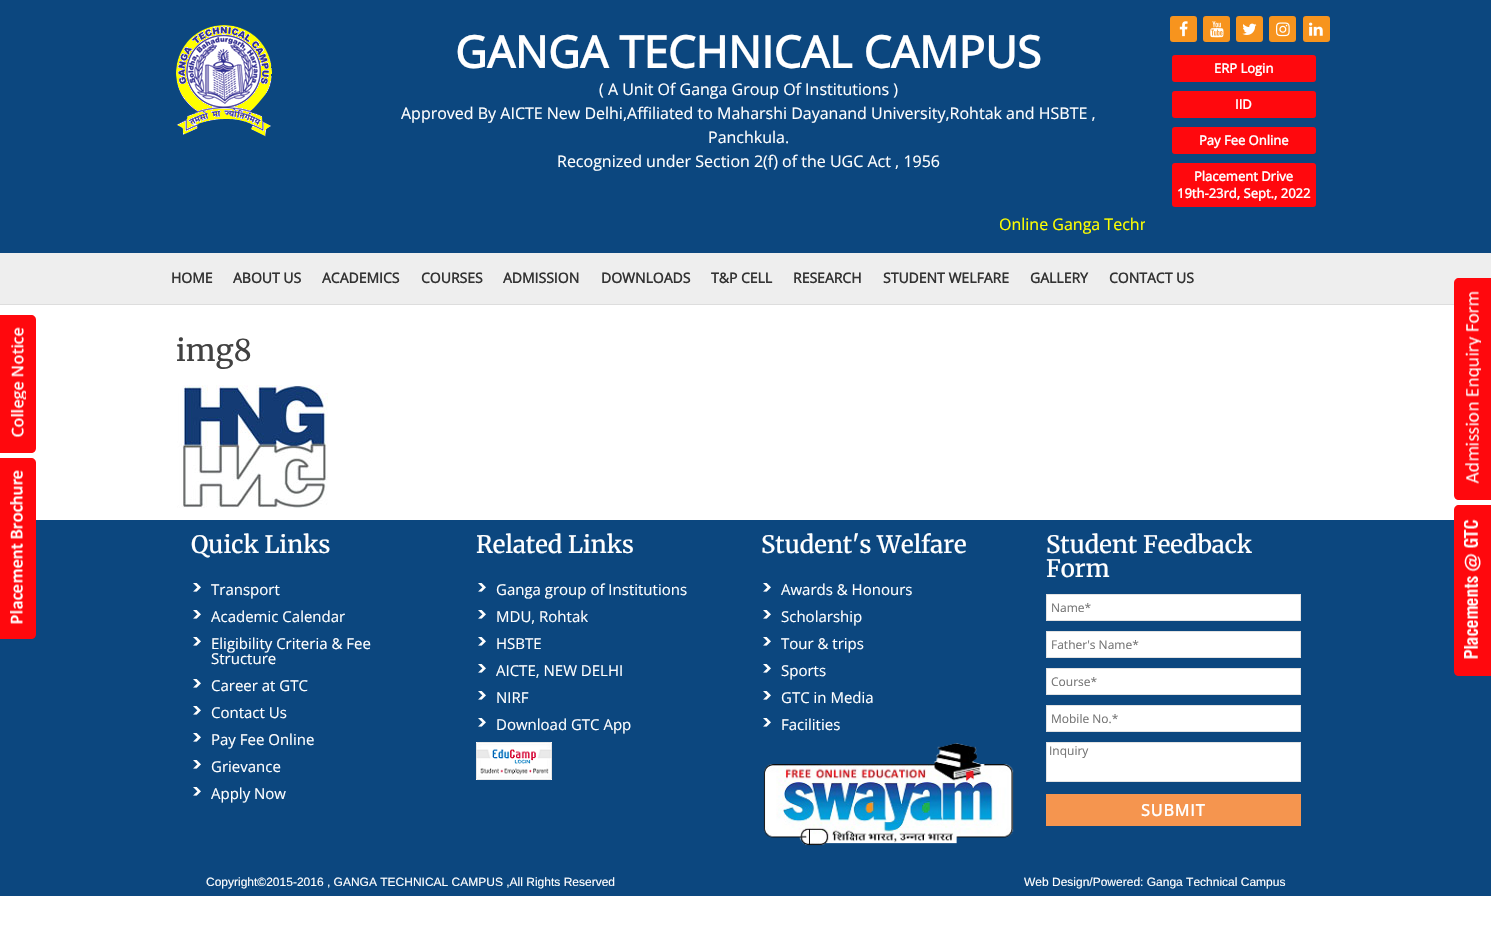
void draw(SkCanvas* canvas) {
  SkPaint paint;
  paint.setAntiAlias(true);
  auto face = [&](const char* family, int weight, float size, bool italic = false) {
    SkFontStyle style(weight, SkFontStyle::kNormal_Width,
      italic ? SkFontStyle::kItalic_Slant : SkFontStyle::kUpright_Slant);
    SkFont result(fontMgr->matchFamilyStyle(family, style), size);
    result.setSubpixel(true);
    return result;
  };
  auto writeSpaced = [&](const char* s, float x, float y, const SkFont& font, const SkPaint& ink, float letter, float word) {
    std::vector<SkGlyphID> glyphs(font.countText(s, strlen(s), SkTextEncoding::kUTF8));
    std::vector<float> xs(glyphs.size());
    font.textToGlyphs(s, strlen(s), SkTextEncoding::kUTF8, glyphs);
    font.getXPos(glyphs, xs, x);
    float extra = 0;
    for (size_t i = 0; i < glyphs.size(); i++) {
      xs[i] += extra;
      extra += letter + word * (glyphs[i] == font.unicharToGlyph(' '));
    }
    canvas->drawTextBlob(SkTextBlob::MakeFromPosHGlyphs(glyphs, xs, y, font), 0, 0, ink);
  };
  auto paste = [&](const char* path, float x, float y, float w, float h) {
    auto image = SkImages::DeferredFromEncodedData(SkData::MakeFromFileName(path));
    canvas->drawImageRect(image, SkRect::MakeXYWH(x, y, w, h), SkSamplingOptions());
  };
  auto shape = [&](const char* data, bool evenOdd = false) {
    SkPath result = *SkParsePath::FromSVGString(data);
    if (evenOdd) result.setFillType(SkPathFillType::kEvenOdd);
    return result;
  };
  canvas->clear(0xffffffff);
  paint.setColor(0xff0c477f);
  canvas->drawRect(SkRect::MakeXYWH(0, 0, 1491, 253), paint);
  paste("img/1.png", 176, 25, 96, 112);
  paint.setColor(0xfff7941e);
  canvas->drawRoundRect(SkRect::MakeXYWH(1170, 16, 27, 26), 3, 3, paint);
  paste("img/2.png", 1179, 21, 9, 16);
  canvas->drawRoundRect(SkRect::MakeXYWH(1203, 16, 27, 26), 3, 3, paint);
  paste("img/3.png", 1210, 21, 14, 17);
  canvas->drawRoundRect(SkRect::MakeXYWH(1236, 16, 27, 26), 3, 3, paint);
  paste("img/4.png", 1242, 23, 15, 12);
  canvas->drawRoundRect(SkRect::MakeXYWH(1269, 16, 27, 26), 3, 3, paint);
  paste("img/5.png", 1276, 22, 14, 15);
  canvas->drawRoundRect(SkRect::MakeXYWH(1303, 16, 27, 26), 3, 3, paint);
  paste("img/6.png", 1309, 22, 14, 14);
  paint.setColor(0xffff080d);
  canvas->drawRoundRect(SkRect::MakeXYWH(1172, 55, 144, 27), 3, 3, paint);
  canvas->drawRoundRect(SkRect::MakeXYWH(1172, 91, 144, 27), 3, 3, paint);
  canvas->drawRoundRect(SkRect::MakeXYWH(1172, 127, 144, 27), 3, 3, paint);
  canvas->drawRoundRect(SkRect::MakeXYWH(1172, 163, 144, 44), 3, 3, paint);
  canvas->drawPath(shape("M0 315H31C34 315 36 317 36 320V448C36 451 34 453 31 453H0Z"), paint);
  paste("img/7.png", 10, 327, 16, 111);
  paint.setColor(0xff0c477f);
  canvas->drawRect(SkRect::MakeXYWH(0, 520, 1491, 376), paint);
  paint.setColor(0xffff080d);
  canvas->drawPath(shape("M0 458H31C34 458 36 460 36 463V634C36 637 34 639 31 639H0Z"), paint);
  paste("img/8.png", 10, 470, 13, 154);
  paint.setColor(0xffeeeeee);
  canvas->drawRect(SkRect::MakeXYWH(0, 253, 1491, 51), paint);
  paint.setColor(0xffdddddd);
  canvas->drawRect(SkRect::MakeXYWH(0, 304, 1454, 1), paint);
  paint.setColor(0xffff080d);
  canvas->drawPath(shape("M1459 278H1491V500H1459C1456 500 1454 498 1454 495V283C1454 280 1456 278 1459 278Z"), paint);
  paste("img/9.png", 1465, 291, 16, 193);
  canvas->drawPath(shape("M1459 505H1491V676H1459C1456 676 1454 674 1454 671V510C1454 507 1456 505 1459 505Z"), paint);
  paste("img/10.png", 1464, 519, 17, 140);
  paste("img/11.png", 177, 385, 151, 123);
  paste("img/12.png", 193, 583, 8, 9);
  paste("img/12.png", 193, 610, 8, 9);
  paste("img/12.png", 193, 637, 8, 9);
  paste("img/12.png", 193, 679, 8, 9);
  paste("img/12.png", 193, 706, 8, 9);
  paste("img/12.png", 193, 733, 8, 9);
  paste("img/12.png", 193, 760, 8, 9);
  paste("img/12.png", 193, 787, 8, 9);
  paste("img/12.png", 478, 583, 8, 9);
  paste("img/12.png", 478, 610, 8, 9);
  paste("img/12.png", 478, 637, 8, 9);
  paste("img/12.png", 478, 664, 8, 9);
  paste("img/12.png", 478, 691, 8, 9);
  paste("img/12.png", 478, 718, 8, 9);
  paste("img/13.png", 476, 742, 76, 38);
  paste("img/12.png", 763, 583, 8, 9);
  paste("img/12.png", 763, 610, 8, 9);
  paste("img/12.png", 763, 637, 8, 9);
  paste("img/12.png", 763, 664, 8, 9);
  paste("img/12.png", 763, 691, 8, 9);
  paste("img/12.png", 763, 718, 8, 9);
  paste("img/14.png", 763, 743, 251, 103);
  paint.setColor(0xffffffff);
  canvas->drawRect(SkRect::MakeXYWH(1046.5f, 594.5f, 254, 26), paint);
  paint.setStroke(true);
  paint.setStrokeWidth(1);
  paint.setColor(0xffe3e3e3);
  canvas->drawRect(SkRect::MakeXYWH(1046.5f, 594.5f, 254, 26), paint);
  paint.setStroke(false);
  paint.setColor(0xffffffff);
  canvas->drawRect(SkRect::MakeXYWH(1046.5f, 631.5f, 254, 26), paint);
  paint.setStroke(true);
  paint.setColor(0xffe3e3e3);
  canvas->drawRect(SkRect::MakeXYWH(1046.5f, 631.5f, 254, 26), paint);
  paint.setStroke(false);
  paint.setColor(0xffffffff);
  canvas->drawRect(SkRect::MakeXYWH(1046.5f, 668.5f, 254, 26), paint);
  paint.setStroke(true);
  paint.setColor(0xffe3e3e3);
  canvas->drawRect(SkRect::MakeXYWH(1046.5f, 668.5f, 254, 26), paint);
  paint.setStroke(false);
  paint.setColor(0xffffffff);
  canvas->drawRect(SkRect::MakeXYWH(1046.5f, 705.5f, 254, 26), paint);
  paint.setStroke(true);
  paint.setColor(0xffe3e3e3);
  canvas->drawRect(SkRect::MakeXYWH(1046.5f, 705.5f, 254, 26), paint);
  paint.setStroke(false);
  paint.setColor(0xffffffff);
  canvas->drawRect(SkRect::MakeXYWH(1046.5f, 742.5f, 254, 39), paint);
  paint.setStroke(true);
  paint.setColor(0xffe3e3e3);
  canvas->drawRect(SkRect::MakeXYWH(1046.5f, 742.5f, 254, 39), paint);
  paint.setStroke(false);
  paint.setColor(0xfff5954f);
  canvas->drawRect(SkRect::MakeXYWH(1046, 794, 255, 32), paint);
  auto f0 = face("Open Sans", 700, 44);
  paint.setColor(0xffffffff);
  canvas->drawString("GANGA TECHNICAL CAMPUS", 455, 68, f0, paint);
  auto f1 = face("Open Sans", 400, 16);
  {
    const struct { const char* s; float x, y; } items[] = {
      {"( A Unit Of Ganga Group Of Institutions )", 599, 95},
      {"Approved By AICTE New Delhi,Affiliated to Maharshi Dayanand University,Rohtak and HSBTE ,", 401, 119},
      {"Panchkula.", 708, 143},
      {"Recognized under Section 2(f) of the UGC Act , 1956", 557, 167},
    };
    for (auto [s, x, y] : items) {
      canvas->drawString(s, x, y, f1, paint);
    }
  }
  auto f2 = face("Open Sans", 700, 13);
  {
    const struct { const char* s; float x, y; } items[] = {
      {"ERP Login", 1214, 73},
      {"IID", 1235, 109},
      {"Pay Fee Online", 1199, 145},
      {"Placement Drive", 1194, 181},
      {"19th-23rd, Sept., 2022", 1177, 198},
    };
    for (auto [s, x, y] : items) {
      canvas->drawString(s, x, y, f2, paint);
    }
  }
  canvas->save();
  canvas->clipRect(SkRect::MakeXYWH(347, 216, 798, 20));
  paint.setColor(0xffffff00);
  canvas->drawString("Online Ganga Techn", 999, 230, f1, paint);
  canvas->restore();
  auto f3 = face("Open Sans", 700, 14);
  paint.setColor(0xff333333);
  {
    const struct { const char* s; float x, y; } items[] = {
      {"HOME", 171, 283},
      {"ABOUT US", 233, 283},
      {"ACADEMICS", 322, 283},
      {"COURSES", 421, 283},
      {"ADMISSION", 503, 283},
      {"DOWNLOADS", 601, 283},
      {"T&P CELL", 711, 283},
      {"RESEARCH", 793, 283},
      {"STUDENT WELFARE", 883, 283},
      {"GALLERY", 1030, 283},
      {"CONTACT US", 1109, 283},
    };
    for (auto [s, x, y] : items) {
      canvas->drawString(s, x, y, f3, paint);
    }
  }
  auto f4 = face("Merriweather", 400, 30);
  paint.setColor(0xff424242);
  canvas->drawString("img8", 176, 361, f4, paint);
  auto f5 = face("Merriweather", 500, 24);
  paint.setColor(0xffffffff);
  canvas->drawString("Quick Links", 191, 553, f5, paint);
  auto f6 = face("Open Sans", 400, 15);
  {
    const struct { const char* s; float x, y; } items[] = {
      {"Transport", 211, 595},
      {"Academic Calendar", 211, 622},
      {"Eligibility Criteria & Fee", 211, 649},
      {"Structure", 211, 664},
      {"Career at GTC", 211, 691},
      {"Contact Us", 211, 718},
      {"Pay Fee Online", 211, 745},
      {"Grievance", 211, 772},
      {"Apply Now", 211, 799},
    };
    for (auto [s, x, y] : items) {
      canvas->drawString(s, x, y, f6, paint);
    }
  }
  canvas->drawString("Related Links", 476, 553, f5, paint);
  {
    const struct { const char* s; float x, y; } items[] = {
      {"Ganga group of Institutions", 496, 595},
      {"MDU, Rohtak", 496, 622},
      {"HSBTE", 496, 649},
      {"AICTE, NEW DELHI", 496, 676},
      {"NIRF", 496, 703},
      {"Download GTC App", 496, 730},
    };
    for (auto [s, x, y] : items) {
      canvas->drawString(s, x, y, f6, paint);
    }
  }
  canvas->drawString("Student's Welfare", 761, 553, f5, paint);
  {
    const struct { const char* s; float x, y; } items[] = {
      {"Awards & Honours", 781, 595},
      {"Scholarship", 781, 622},
      {"Tour & trips", 781, 649},
      {"Sports", 781, 676},
      {"GTC in Media", 781, 703},
      {"Facilities", 781, 730},
    };
    for (auto [s, x, y] : items) {
      canvas->drawString(s, x, y, f6, paint);
    }
  }
  canvas->drawString("Student Feedback", 1046, 553, f5, paint);
  canvas->drawString("Form", 1046, 577, f5, paint);
  auto f7 = face("Open Sans", 400, 12);
  paint.setColor(0xff757575);
  {
    const struct { const char* s; float x, y; } items[] = {
      {"Name*", 1051, 612},
      {"Father's Name*", 1051, 649},
      {"Course*", 1051, 686},
      {"Mobile No.*", 1051, 723},
      {"Inquiry", 1049, 755},
    };
    for (auto [s, x, y] : items) {
      canvas->drawString(s, x, y, f7, paint);
    }
  }
  auto f8 = face("Open Sans", 700, 16);
  paint.setColor(0xffffffff);
  writeSpaced("SUBMIT", 1141, 816, f8, paint, 1, 0);
  auto f9 = face("Liberation Sans", 400, 12);
  canvas->drawString("Copyright©2015-2016 , GANGA TECHNICAL CAMPUS ,All Rights Reserved", 206, 886, f9, paint);
  canvas->drawString("Web Design/Powered: Ganga Technical Campus", 1024, 886, f9, paint);
}
